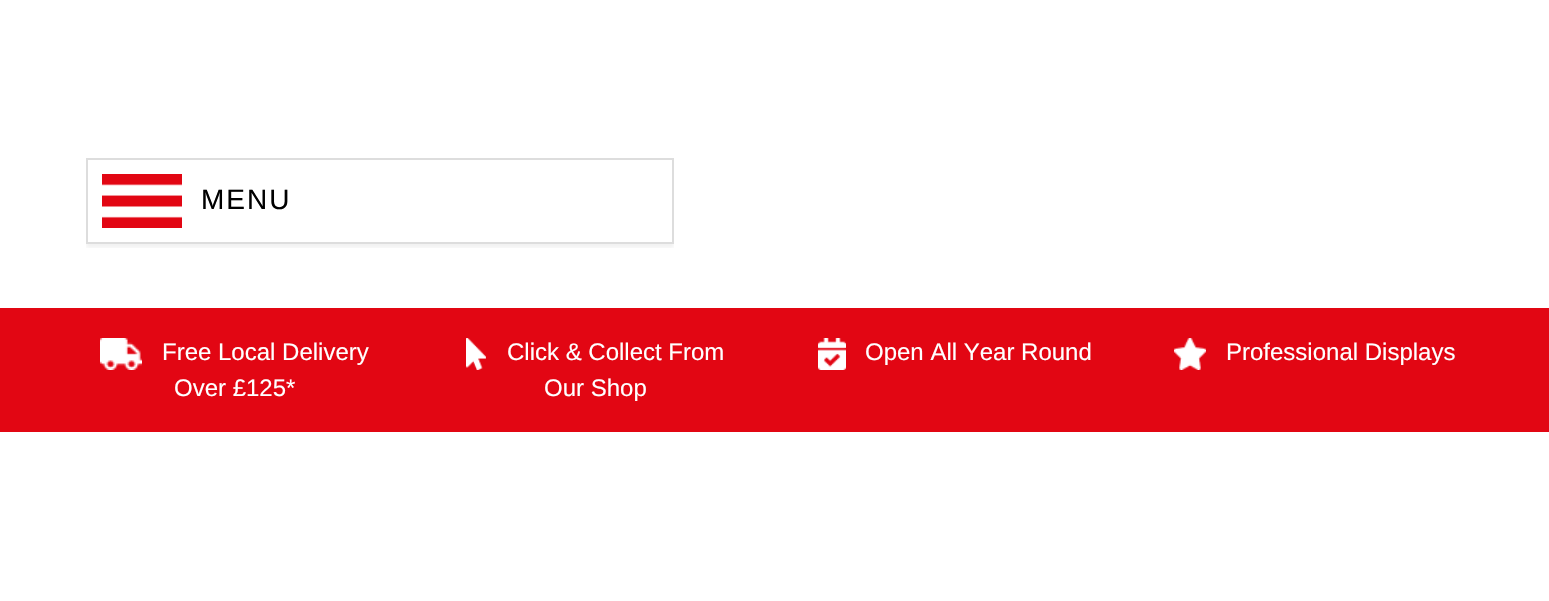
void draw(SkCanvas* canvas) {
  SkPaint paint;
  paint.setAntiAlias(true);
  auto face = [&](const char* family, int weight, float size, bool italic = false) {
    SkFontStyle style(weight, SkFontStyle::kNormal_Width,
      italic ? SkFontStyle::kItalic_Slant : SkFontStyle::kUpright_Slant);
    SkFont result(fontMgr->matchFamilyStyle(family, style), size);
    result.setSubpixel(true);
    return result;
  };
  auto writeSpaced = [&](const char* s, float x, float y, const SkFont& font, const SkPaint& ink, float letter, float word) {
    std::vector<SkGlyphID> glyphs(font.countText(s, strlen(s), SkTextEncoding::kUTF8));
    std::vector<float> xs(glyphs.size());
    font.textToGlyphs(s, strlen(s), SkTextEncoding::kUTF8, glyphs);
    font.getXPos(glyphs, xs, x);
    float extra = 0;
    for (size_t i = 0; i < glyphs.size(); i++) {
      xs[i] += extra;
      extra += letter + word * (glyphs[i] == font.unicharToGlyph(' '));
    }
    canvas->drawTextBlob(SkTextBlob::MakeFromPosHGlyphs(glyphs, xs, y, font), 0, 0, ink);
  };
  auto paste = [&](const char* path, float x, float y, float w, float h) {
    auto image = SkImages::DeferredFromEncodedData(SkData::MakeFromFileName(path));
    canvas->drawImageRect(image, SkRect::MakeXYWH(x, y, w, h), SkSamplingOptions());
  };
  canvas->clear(0xffffffff);
  canvas->save();
  canvas->clipRect(SkRect::MakeXYWH(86, 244, 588, 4));
  paint.setColor(0x0d000000);
  paint.setMaskFilter(SkMaskFilter::MakeBlur(kNormal_SkBlurStyle, 2));
  canvas->drawRect(SkRect::MakeXYWH(86, 162, 588, 86), paint);
  paint.setMaskFilter(nullptr);
  canvas->restore();
  paint.setStroke(true);
  paint.setStrokeWidth(2);
  paint.setColor(0xffdddddd);
  canvas->drawRect(SkRect::MakeXYWH(87, 159, 586, 84), paint);
  paste("img/1.png", 102, 174, 80, 54);
  paint.setStroke(false);
  paint.setColor(0xffe20613);
  canvas->drawRect(SkRect::MakeXYWH(0, 308, 1549, 124), paint);
  paste("img/2.png", 100, 338, 42, 32);
  paste("img/3.png", 466, 338, 20, 32);
  paste("img/4.png", 818, 338, 28, 32);
  paste("img/5.png", 1174, 338, 32, 32);
  auto f0 = face("Liberation Sans", 400, 28);
  paint.setColor(0xff000000);
  writeSpaced("MENU", 201, 209, f0, paint, 2, 0);
  auto f1 = face("Liberation Sans", 400, 24);
  paint.setColor(0xffffffff);
  {
    const struct { const char* s; float x, y; } items[] = {
      {"Free Local Delivery", 162, 360},
      {"Over £125*", 174, 396},
      {"Click & Collect From", 507, 360},
      {"Our Shop", 544, 396},
      {"Open All Year Round", 865, 360},
      {"Professional Displays", 1226, 360},
    };
    for (auto [s, x, y] : items) {
      canvas->drawString(s, x, y, f1, paint);
    }
  }
}
